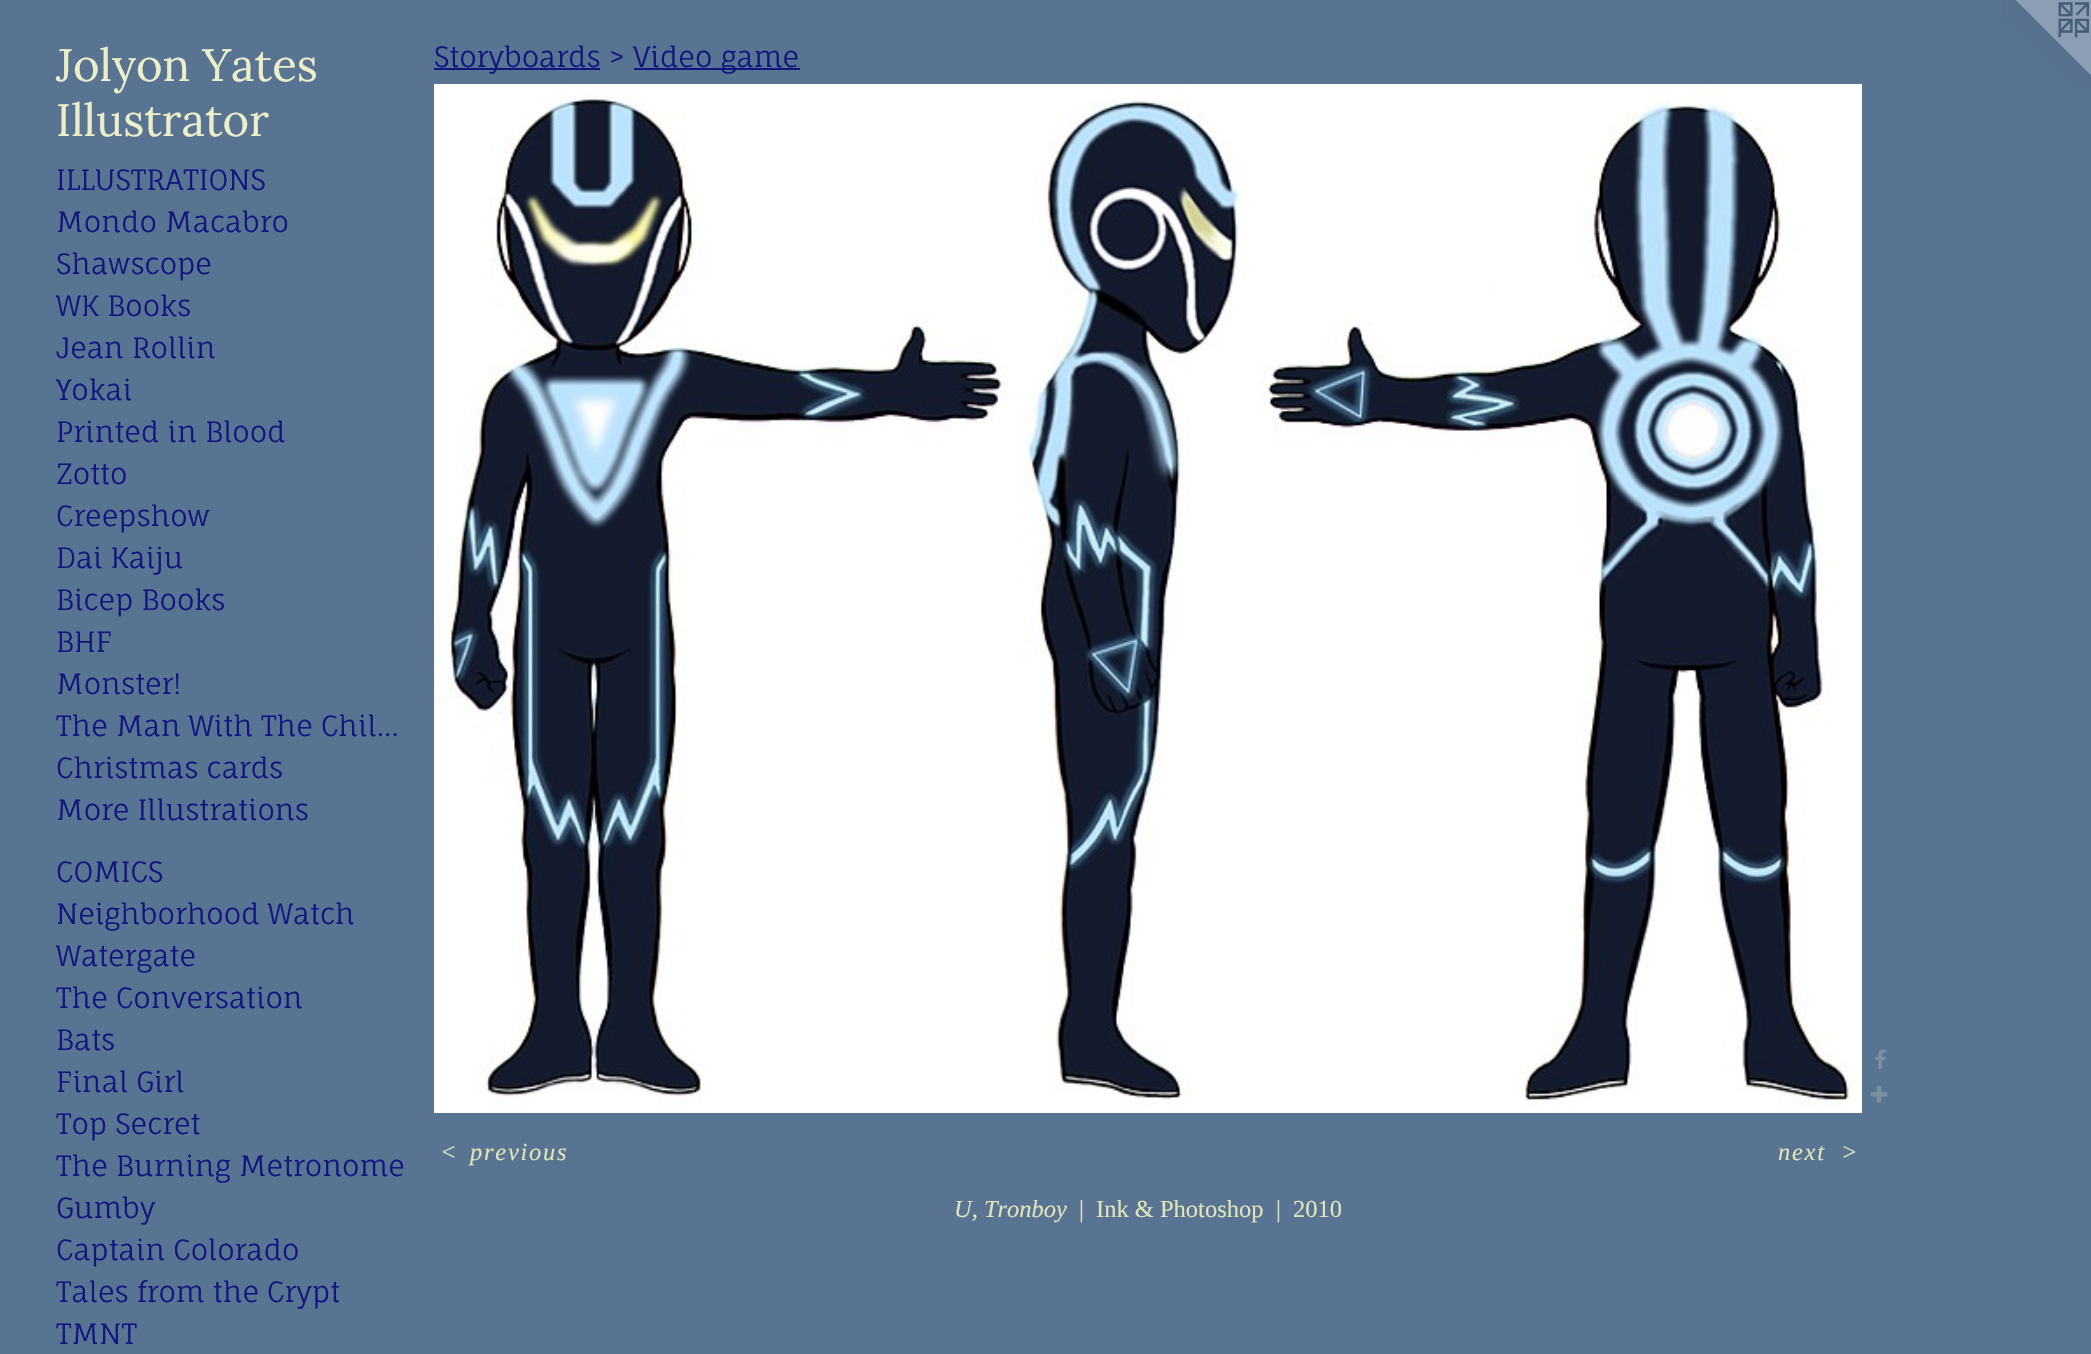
void draw(SkCanvas* canvas) {
  SkPaint paint;
  paint.setAntiAlias(true);
  auto face = [&](const char* family, int weight, float size, bool italic = false) {
    SkFontStyle style(weight, SkFontStyle::kNormal_Width,
      italic ? SkFontStyle::kItalic_Slant : SkFontStyle::kUpright_Slant);
    SkFont result(fontMgr->matchFamilyStyle(family, style), size);
    result.setSubpixel(true);
    return result;
  };
  auto writeSpaced = [&](const char* s, float x, float y, const SkFont& font, const SkPaint& ink, float letter, float word) {
    std::vector<SkGlyphID> glyphs(font.countText(s, strlen(s), SkTextEncoding::kUTF8));
    std::vector<float> xs(glyphs.size());
    font.textToGlyphs(s, strlen(s), SkTextEncoding::kUTF8, glyphs);
    font.getXPos(glyphs, xs, x);
    float extra = 0;
    for (size_t i = 0; i < glyphs.size(); i++) {
      xs[i] += extra;
      extra += letter + word * (glyphs[i] == font.unicharToGlyph(' '));
    }
    canvas->drawTextBlob(SkTextBlob::MakeFromPosHGlyphs(glyphs, xs, y, font), 0, 0, ink);
  };
  auto paste = [&](const char* path, float x, float y, float w, float h) {
    auto image = SkImages::DeferredFromEncodedData(SkData::MakeFromFileName(path));
    canvas->drawImageRect(image, SkRect::MakeXYWH(x, y, w, h), SkSamplingOptions());
  };
  canvas->clear(0xff597493);
  paint.setColor(0xff10187f);
  canvas->drawRect(SkRect::MakeXYWH(434, 68, 166, 2), paint);
  canvas->drawRect(SkRect::MakeXYWH(634, 68, 166, 2), paint);
  paste("img/1.png", 434, 84, 1428, 1029);
  paste("img/2.png", 1875, 1049, 11, 20);
  paste("img/3.png", 1870, 1086, 18, 17);
  paste("img/4.png", 2001, 0, 90, 90);
  auto f0 = face("Lora", 400, 45.5f);
  paint.setColor(0xffeceec9);
  canvas->drawString("Jolyon Yates", 56, 81, f0, paint);
  canvas->drawString("Illustrator", 56, 136, f0, paint);
  auto f1 = face("Fauna One", 400, 28);
  paint.setColor(0xff10187f);
  {
    const struct { const char* s; float x, y; } items[] = {
      {"ILLUSTRATIONS", 56, 190},
      {"Mondo Macabro", 56, 232},
      {"Shawscope", 56, 274},
      {"WK Books", 56, 316},
      {"Jean Rollin", 56, 358},
      {"Yokai", 56, 400},
      {"Printed in Blood", 56, 442},
      {"Zotto", 56, 484},
      {"Creepshow", 56, 526},
      {"Dai Kaiju", 56, 568},
      {"Bicep Books", 56, 610},
      {"BHF", 56, 652},
      {"Monster!", 56, 694},
      {"The Man With The Chil…", 56, 736},
      {"Christmas cards", 56, 778},
      {"More Illustrations", 56, 820},
      {"COMICS", 56, 882},
      {"Neighborhood Watch", 56, 924},
      {"Watergate", 56, 966},
      {"The Conversation", 56, 1008},
      {"Bats", 56, 1050},
      {"Final Girl", 56, 1092},
      {"Top Secret", 56, 1134},
      {"The Burning Metronome", 56, 1176},
      {"Gumby", 56, 1218},
      {"Captain Colorado", 56, 1260},
      {"Tales from the Crypt", 56, 1302},
      {"TMNT", 56, 1344},
      {"Storyboards >", 434, 67},
      {"Video game", 633, 67},
    };
    for (auto [s, x, y] : items) {
      canvas->drawString(s, x, y, f1, paint);
    }
  }
  auto f2 = face("Liberation Serif", 400, 24.5f, true);
  paint.setColor(0xffdee3ba);
  {
    const struct { const char* s; float x, y; } items[] = {
      {"<", 440, 1160},
      {"previous", 470, 1160},
      {"next", 1778, 1160},
      {">", 1841, 1160},
    };
    for (auto [s, x, y] : items) {
      writeSpaced(s, x, y, f2, paint, 1.75f, 0);
    }
  }
  canvas->drawString("U, Tronboy", 954, 1217, f2, paint);
  auto f3 = face("Liberation Serif", 400, 24.5f);
  {
    const struct { const char* s; float x, y; } items[] = {
      {"|", 1079, 1217},
      {"Ink & Photoshop", 1096, 1217},
      {"|", 1276, 1217},
      {"2010", 1293, 1217},
    };
    for (auto [s, x, y] : items) {
      canvas->drawString(s, x, y, f3, paint);
    }
  }
}
